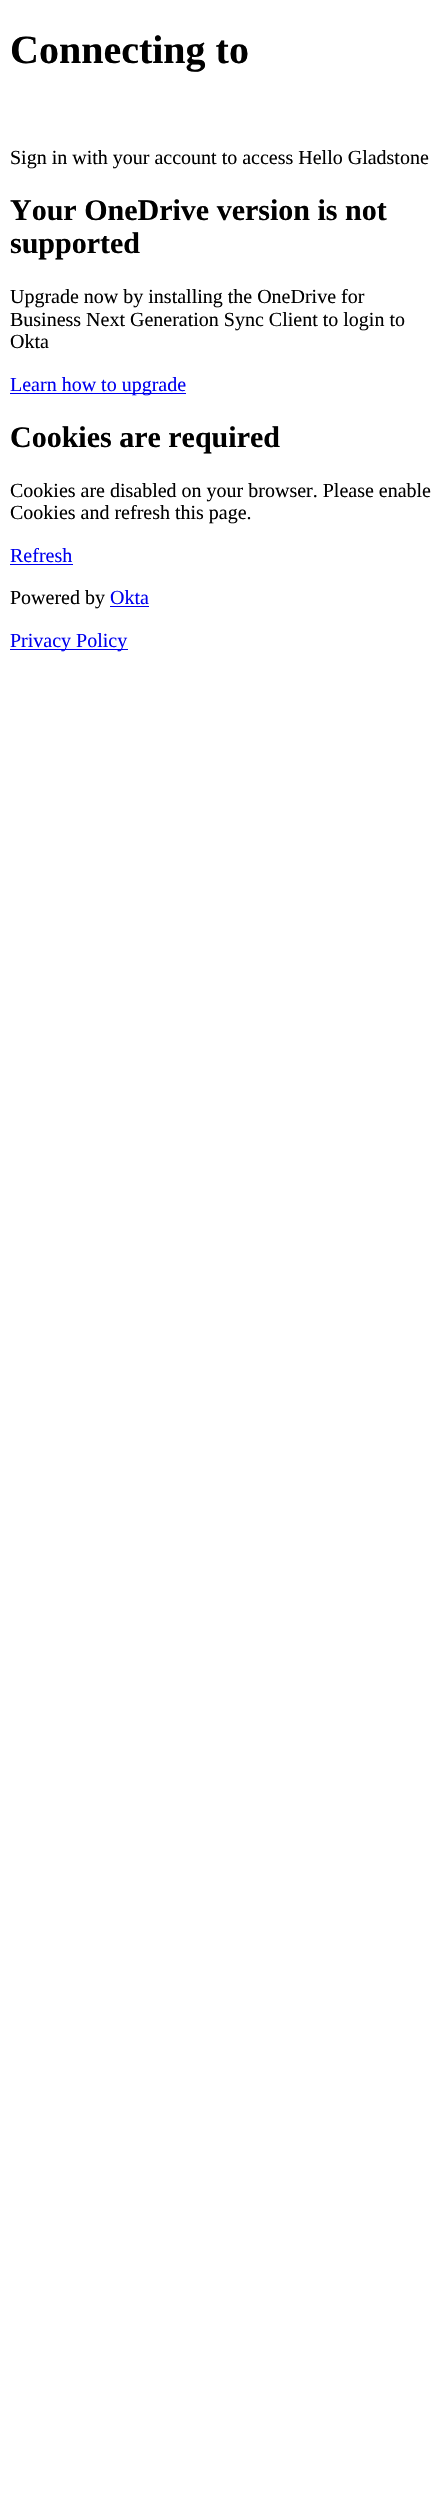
void draw(SkCanvas* canvas) {
  SkPaint paint;
  paint.setAntiAlias(true);
  auto face = [&](const char* family, int weight, float size, bool italic = false) {
    SkFontStyle style(weight, SkFontStyle::kNormal_Width,
      italic ? SkFontStyle::kItalic_Slant : SkFontStyle::kUpright_Slant);
    SkFont result(fontMgr->matchFamilyStyle(family, style), size);
    result.setSubpixel(true);
    return result;
  };
  canvas->clear(0xffffffff);
  {
    const struct { float x, y, w, h; SkColor color; } items[] = {
      {10, 393, 176, 1, 0xff0000ee},
      {10, 564, 63, 1, 0xff0000ee},
      {110, 606, 39, 1, 0xff0000ee},
      {10, 649, 118, 1, 0xff0000ee},
    };
    for (auto [x, y, w, h, color] : items) {
      paint.setColor(color);
      canvas->drawRect(SkRect::MakeXYWH(x, y, w, h), paint);
    }
  }
  auto f0 = face("Liberation Serif", 700, 40);
  paint.setColor(0xff000000);
  canvas->drawString("Connecting to", 10, 63, f0, paint);
  auto f1 = face("Liberation Serif", 400, 20);
  canvas->drawString("Sign in with your account to access Hello Gladstone", 10, 164, f1, paint);
  auto f2 = face("Liberation Serif", 700, 30);
  canvas->drawString("Your OneDrive version is not", 10, 220, f2, paint);
  canvas->drawString("supported", 10, 253, f2, paint);
  {
    const struct { const char* s; float x, y; } items[] = {
      {"Upgrade now by installing the OneDrive for", 10, 303},
      {"Business Next Generation Sync Client to login to", 10, 326},
      {"Okta", 10, 348},
    };
    for (auto [s, x, y] : items) {
      canvas->drawString(s, x, y, f1, paint);
    }
  }
  paint.setColor(0xff0000ee);
  canvas->drawString("Learn how to upgrade", 10, 391, f1, paint);
  paint.setColor(0xff000000);
  canvas->drawString("Cookies are required", 10, 447, f2, paint);
  canvas->drawString("Cookies are disabled on your browser. Please enable", 10, 497, f1, paint);
  canvas->drawString("Cookies and refresh this page.", 10, 519, f1, paint);
  paint.setColor(0xff0000ee);
  canvas->drawString("Refresh", 10, 562, f1, paint);
  paint.setColor(0xff000000);
  canvas->drawString("Powered by", 10, 604, f1, paint);
  paint.setColor(0xff0000ee);
  canvas->drawString("Okta", 110, 604, f1, paint);
  canvas->drawString("Privacy Policy", 10, 647, f1, paint);
}
